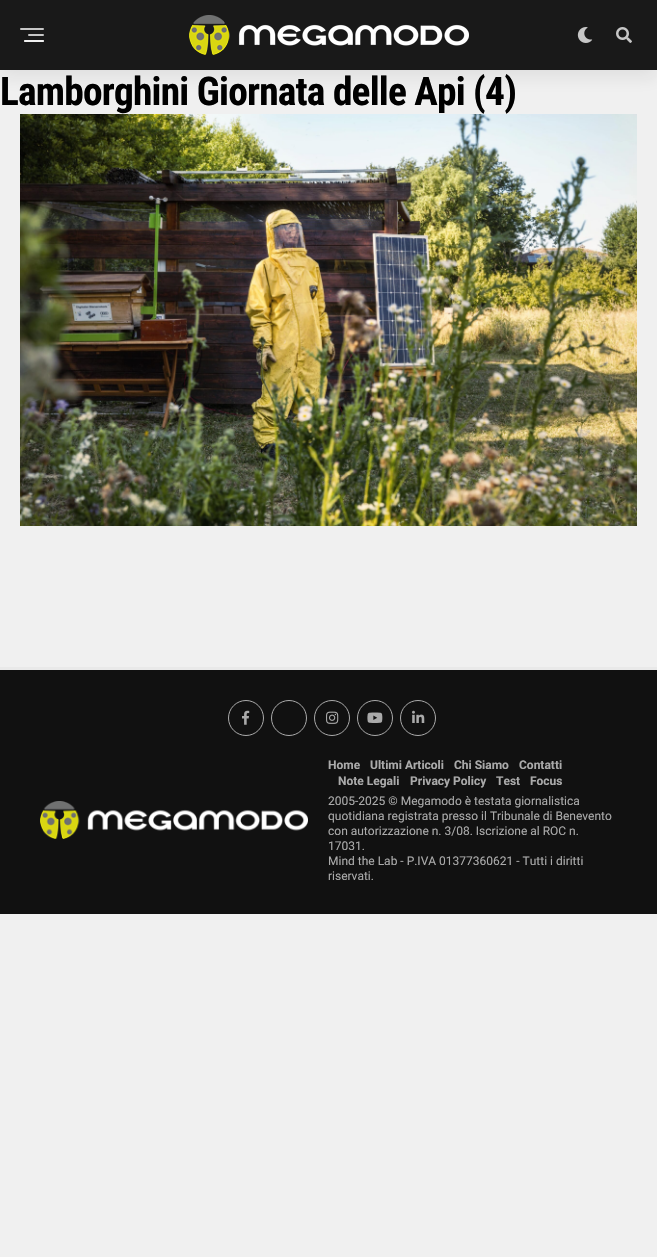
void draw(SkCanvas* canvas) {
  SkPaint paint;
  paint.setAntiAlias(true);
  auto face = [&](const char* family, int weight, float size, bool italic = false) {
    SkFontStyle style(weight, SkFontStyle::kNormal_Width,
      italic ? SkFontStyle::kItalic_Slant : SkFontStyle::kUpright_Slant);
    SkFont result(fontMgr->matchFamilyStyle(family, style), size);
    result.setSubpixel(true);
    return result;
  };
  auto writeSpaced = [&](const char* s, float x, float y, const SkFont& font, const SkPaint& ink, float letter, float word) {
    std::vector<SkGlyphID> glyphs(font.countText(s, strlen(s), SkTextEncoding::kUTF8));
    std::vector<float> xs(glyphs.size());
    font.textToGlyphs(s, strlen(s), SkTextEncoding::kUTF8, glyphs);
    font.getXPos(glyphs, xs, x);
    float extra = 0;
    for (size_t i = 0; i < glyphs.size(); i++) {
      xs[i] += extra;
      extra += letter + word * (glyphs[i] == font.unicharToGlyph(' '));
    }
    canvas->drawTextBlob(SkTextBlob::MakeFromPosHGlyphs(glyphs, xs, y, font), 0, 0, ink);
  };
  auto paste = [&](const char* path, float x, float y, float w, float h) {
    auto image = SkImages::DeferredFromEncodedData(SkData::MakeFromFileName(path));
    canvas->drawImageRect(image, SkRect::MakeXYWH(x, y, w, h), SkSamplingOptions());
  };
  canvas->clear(0xfff0f0f0);
  paint.setColor(0x1415151e);
  paint.setMaskFilter(SkMaskFilter::MakeBlur(kNormal_SkBlurStyle, 8));
  canvas->drawRect(SkRect::MakeXYWH(0, 8, 657, 70), paint);
  paint.setMaskFilter(nullptr);
  paint.setColor(0xff191919);
  canvas->drawRect(SkRect::MakeXYWH(0, 0, 657, 70), paint);
  paint.setColor(0xffc6c6c6);
  canvas->drawRoundRect(SkRect::MakeXYWH(20, 28, 24, 2), 1, 1, paint);
  canvas->drawRoundRect(SkRect::MakeXYWH(28, 34, 16, 2), 1, 1, paint);
  canvas->drawRoundRect(SkRect::MakeXYWH(24, 40, 20, 2), 1, 1, paint);
  paint.setColor(0xbfffffff);
  canvas->drawRoundRect(SkRect::MakeXYWH(24, 40, 20, 2), 1, 1, paint);
  paste("img/1.png", 189, 15, 280, 40);
  paste("img/2.png", 577, 27, 16, 16);
  paste("img/3.png", 616, 27, 16, 16);
  paste("img/4.png", 20, 114, 617, 412);
  paint.setColor(0xff111111);
  canvas->drawRect(SkRect::MakeXYWH(0, 670, 657, 244), paint);
  paint.setColor(0xffe9e9e9);
  canvas->drawRect(SkRect::MakeXYWH(0, 667, 657, 3), paint);
  paint.setStroke(true);
  paint.setStrokeWidth(1);
  paint.setColor(0xffaaaaaa);
  canvas->drawCircle(246, 718, 17.5f, paint);
  paste("img/5.png", 242, 710, 8, 15);
  canvas->drawCircle(289, 718, 17.5f, paint);
  canvas->drawCircle(332, 718, 17.5f, paint);
  paste("img/6.png", 326, 711, 13, 13);
  canvas->drawCircle(375, 718, 17.5f, paint);
  paste("img/7.png", 367, 712, 16, 11);
  canvas->drawCircle(418, 718, 17.5f, paint);
  paste("img/8.png", 412, 710, 13, 13);
  paste("img/9.png", 40, 801, 268, 38);
  auto f0 = face("Roboto Condensed", 700, 39.4f);
  paint.setStroke(false);
  paint.setColor(0xff000000);
  writeSpaced("Lamborghini Giornata delle Api (4)", 0, 105, f0, paint, -0.8f, 0);
  auto f1 = face("Roboto", 700, 12);
  paint.setColor(0xffaaaaaa);
  {
    const struct { const char* s; float x, y; } items[] = {
      {"Home", 328, 769},
      {"Ultimi Articoli", 370, 769},
      {"Chi Siamo", 454, 769},
      {"Contatti", 519, 769},
      {"Note Legali", 338, 785},
      {"Privacy Policy", 410, 785},
      {"Test", 496, 785},
      {"Focus", 530, 785},
    };
    for (auto [s, x, y] : items) {
      canvas->drawString(s, x, y, f1, paint);
    }
  }
  auto f2 = face("Roboto", 400, 12);
  {
    const struct { const char* s; float x, y; } items[] = {
      {"2005-2025 © Megamodo è testata giornalistica", 328, 805},
      {"quotidiana registrata presso il Tribunale di Benevento", 328, 820},
      {"con autorizzazione n. 3/08. Iscrizione al ROC n.", 328, 835},
      {"17031.", 328, 850},
      {"Mind the Lab - P.IVA 01377360621 - Tutti i diritti", 328, 865},
      {"riservati.", 328, 880},
    };
    for (auto [s, x, y] : items) {
      canvas->drawString(s, x, y, f2, paint);
    }
  }
}
